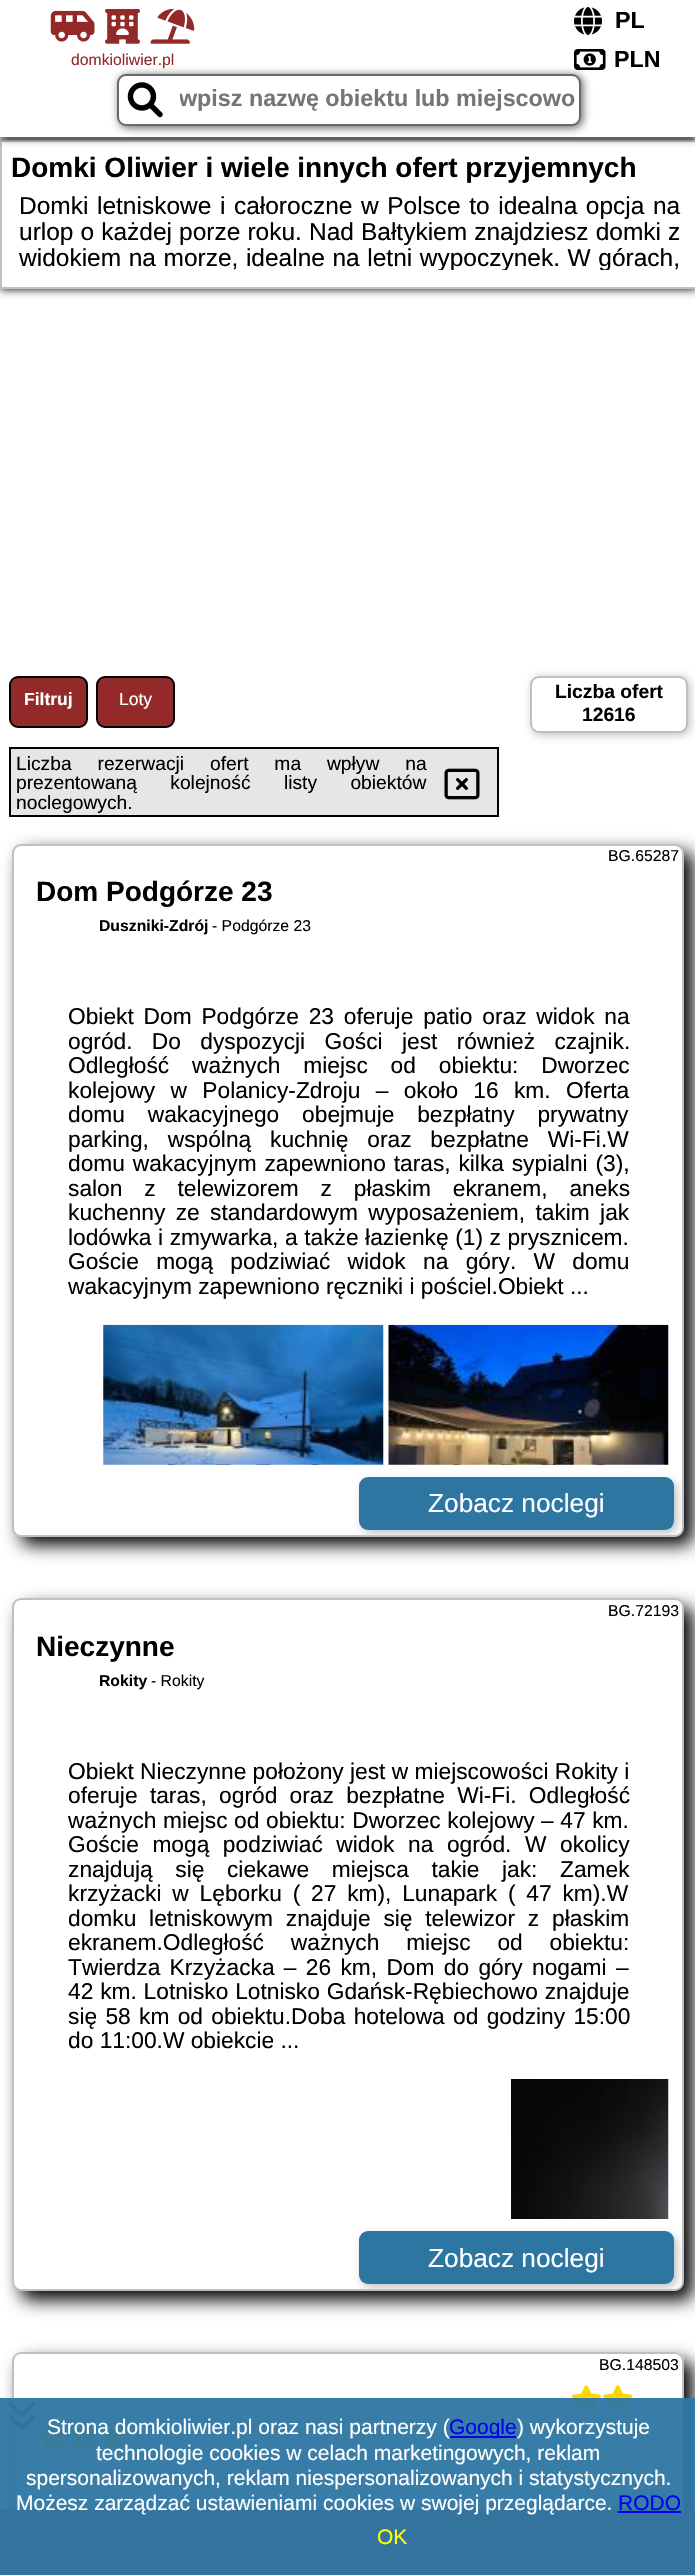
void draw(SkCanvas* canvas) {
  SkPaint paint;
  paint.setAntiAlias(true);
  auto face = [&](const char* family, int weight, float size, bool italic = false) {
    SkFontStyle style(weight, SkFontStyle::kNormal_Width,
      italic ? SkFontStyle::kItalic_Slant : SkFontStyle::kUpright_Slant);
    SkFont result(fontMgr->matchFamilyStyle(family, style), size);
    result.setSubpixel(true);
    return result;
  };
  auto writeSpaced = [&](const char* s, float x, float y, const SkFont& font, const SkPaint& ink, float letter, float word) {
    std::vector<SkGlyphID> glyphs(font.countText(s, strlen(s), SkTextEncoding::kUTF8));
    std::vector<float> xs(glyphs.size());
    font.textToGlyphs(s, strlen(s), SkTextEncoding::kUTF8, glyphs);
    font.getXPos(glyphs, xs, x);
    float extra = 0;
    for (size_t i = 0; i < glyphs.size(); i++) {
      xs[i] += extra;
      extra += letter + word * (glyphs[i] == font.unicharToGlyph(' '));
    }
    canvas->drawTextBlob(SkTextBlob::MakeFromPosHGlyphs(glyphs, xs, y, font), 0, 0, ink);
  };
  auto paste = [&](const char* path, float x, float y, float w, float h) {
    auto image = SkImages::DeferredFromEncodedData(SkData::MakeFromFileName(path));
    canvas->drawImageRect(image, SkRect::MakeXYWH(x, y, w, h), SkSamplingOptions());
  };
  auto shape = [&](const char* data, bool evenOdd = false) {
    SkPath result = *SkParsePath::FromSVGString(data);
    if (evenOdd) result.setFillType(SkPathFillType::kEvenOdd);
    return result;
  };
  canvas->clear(0xffffffff);
  paint.setColor(0xff000000);
  paint.setMaskFilter(SkMaskFilter::MakeBlur(kNormal_SkBlurStyle, 4.5f));
  canvas->drawRect(SkRect::MakeXYWH(0, 140, 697, 149), paint);
  paint.setMaskFilter(nullptr);
  paint.setColor(0xffffffff);
  canvas->drawRect(SkRect::MakeXYWH(1, 141, 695, 147), paint);
  paint.setStroke(true);
  paint.setStrokeWidth(2);
  paint.setColor(0xffc0c0c0);
  canvas->drawRect(SkRect::MakeXYWH(1, 141, 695, 147), paint);
  paint.setStroke(false);
  paint.setColor(0xff000000);
  paint.setMaskFilter(SkMaskFilter::MakeBlur(kNormal_SkBlurStyle, 4.5f));
  canvas->drawRect(SkRect::MakeXYWH(0, 0, 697, 137), paint);
  paint.setMaskFilter(nullptr);
  paint.setColor(0xffffffff);
  canvas->drawRect(SkRect::MakeXYWH(0, 0, 695, 137), paint);
  paste("img/1.png", 574, 7, 28, 28);
  paste("img/2.png", 50, 10, 45, 32);
  paste("img/3.png", 105, 9, 35, 35);
  paste("img/4.png", 150, 9, 45, 35);
  paint.setColor(0xff676868);
  paint.setMaskFilter(SkMaskFilter::MakeBlur(kNormal_SkBlurStyle, 4.5f));
  canvas->drawRoundRect(SkRect::MakeXYWH(119, 75, 464, 53), 9, 9, paint);
  paint.setMaskFilter(nullptr);
  paste("img/5.png", 574, 49, 32, 21);
  paint.setColor(0xffffffff);
  canvas->drawRoundRect(SkRect::MakeXYWH(118, 75, 462, 50), 8, 8, paint);
  paint.setStroke(true);
  paint.setColor(0xff676868);
  canvas->drawRoundRect(SkRect::MakeXYWH(118, 75, 462, 50), 8, 8, paint);
  paste("img/6.png", 127, 82, 36, 36);
  paint.setStroke(false);
  paint.setColor(0xff942929);
  canvas->drawRoundRect(SkRect::MakeXYWH(10, 677, 77, 50), 8, 8, paint);
  paint.setStroke(true);
  paint.setColor(0xff000000);
  canvas->drawRoundRect(SkRect::MakeXYWH(10, 677, 77, 50), 8, 8, paint);
  paint.setStroke(false);
  paint.setColor(0xff942929);
  canvas->drawRoundRect(SkRect::MakeXYWH(97, 677, 77, 50), 8, 8, paint);
  paint.setStroke(true);
  paint.setColor(0xff000000);
  canvas->drawRoundRect(SkRect::MakeXYWH(97, 677, 77, 50), 8, 8, paint);
  paint.setStroke(false);
  paint.setColor(0xffc0c0c0);
  paint.setMaskFilter(SkMaskFilter::MakeBlur(kNormal_SkBlurStyle, 4.5f));
  canvas->drawRoundRect(SkRect::MakeXYWH(532, 677, 158, 58), 9, 9, paint);
  paint.setMaskFilter(nullptr);
  paint.setColor(0xffffffff);
  canvas->drawRoundRect(SkRect::MakeXYWH(531, 677, 156, 55), 8, 8, paint);
  paint.setStroke(true);
  paint.setColor(0xffc0c0c0);
  canvas->drawRoundRect(SkRect::MakeXYWH(531, 677, 156, 55), 8, 8, paint);
  paint.setStroke(false);
  paint.setColor(0xffe6e6e6);
  canvas->drawRect(SkRect::MakeXYWH(10, 748, 488, 68), paint);
  paint.setStroke(true);
  paint.setColor(0xff000000);
  canvas->drawRect(SkRect::MakeXYWH(10, 748, 488, 68), paint);
  paste("img/7.png", 444, 768, 36, 32);
  paint.setStroke(false);
  paint.setMaskFilter(SkMaskFilter::MakeBlur(kNormal_SkBlurStyle, 9));
  canvas->drawRoundRect(SkRect::MakeXYWH(21, 852, 672, 693), 9, 9, paint);
  paint.setMaskFilter(nullptr);
  paint.setColor(0xffffffff);
  canvas->drawRoundRect(SkRect::MakeXYWH(13, 845, 670, 691), 8, 8, paint);
  paint.setStroke(true);
  paint.setColor(0xffc0c0c0);
  canvas->drawRoundRect(SkRect::MakeXYWH(13, 845, 670, 691), 8, 8, paint);
  paste("img/8.png", 168, 1464, 151, 1);
  paste("img/9.png", 103, 1324, 281, 141);
  paste("img/10.png", 453, 1464, 151, 1);
  paste("img/11.png", 388, 1324, 281, 141);
  canvas->save();
  canvas->clipPath(shape("M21 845H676C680 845 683 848 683 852V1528C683 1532 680 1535 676 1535H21C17 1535 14 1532 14 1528V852C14 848 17 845 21 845Z"), true);
  paint.setStroke(false);
  paint.setMaskFilter(SkMaskFilter::MakeBlur(kNormal_SkBlurStyle, 4.5f));
  canvas->drawRoundRect(SkRect::MakeXYWH(362, 1481, 315, 52), 9, 9, paint);
  paint.setMaskFilter(nullptr);
  canvas->restore();
  paint.setColor(0xff2d76a2);
  canvas->drawRoundRect(SkRect::MakeXYWH(359, 1477, 315, 53), 9, 9, paint);
  paint.setColor(0xff000000);
  paint.setMaskFilter(SkMaskFilter::MakeBlur(kNormal_SkBlurStyle, 9));
  canvas->drawRoundRect(SkRect::MakeXYWH(21, 1607, 672, 693), 9, 9, paint);
  paint.setMaskFilter(nullptr);
  paint.setColor(0xffffffff);
  canvas->drawRoundRect(SkRect::MakeXYWH(13, 1599, 670, 691), 8, 8, paint);
  paint.setStroke(true);
  paint.setColor(0xffc0c0c0);
  canvas->drawRoundRect(SkRect::MakeXYWH(13, 1599, 670, 691), 8, 8, paint);
  paste("img/12.png", 511, 2079, 158, 140);
  canvas->save();
  canvas->clipPath(shape("M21 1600H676C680 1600 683 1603 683 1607V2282C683 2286 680 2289 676 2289H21C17 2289 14 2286 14 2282V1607C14 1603 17 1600 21 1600Z"), true);
  paint.setStroke(false);
  paint.setMaskFilter(SkMaskFilter::MakeBlur(kNormal_SkBlurStyle, 4.5f));
  canvas->drawRoundRect(SkRect::MakeXYWH(362, 2235, 315, 52), 9, 9, paint);
  paint.setMaskFilter(nullptr);
  canvas->restore();
  paint.setColor(0xff2d76a2);
  canvas->drawRoundRect(SkRect::MakeXYWH(359, 2231, 315, 53), 9, 9, paint);
  paint.setColor(0xff000000);
  paint.setMaskFilter(SkMaskFilter::MakeBlur(kNormal_SkBlurStyle, 9));
  canvas->drawRoundRect(SkRect::MakeXYWH(21, 2361, 672, 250), 9, 9, paint);
  paint.setMaskFilter(nullptr);
  paint.setColor(0xffffffff);
  canvas->drawPath(shape("M21 2352H675C680 2352 684 2356 684 2361V2510H12V2361C12 2356 16 2352 21 2352Z"), paint);
  paint.setStroke(true);
  paint.setColor(0xffc0c0c0);
  canvas->drawRoundRect(SkRect::MakeXYWH(13, 2353, 670, 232), 8, 8, paint);
  paste("img/13.png", 571, 2385, 30, 29);
  paste("img/14.png", 603, 2385, 30, 29);
  paste("img/15.png", 38, 2420, 29, 29);
  paste("img/16.png", 69, 2420, 30, 29);
  paste("img/15.png", 101, 2420, 29, 29);
  paste("img/17.png", 8, 2401, 27, 30);
  paint.setStroke(false);
  paint.setColor(0xff942929);
  paint.setMaskFilter(SkMaskFilter::MakeBlur(kNormal_SkBlurStyle, 2));
  canvas->drawRect(SkRect::MakeXYWH(0, 2510, 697, 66), paint);
  paint.setMaskFilter(nullptr);
  {
    const struct { float x, y, w, h; SkColor color; } items[] = {
      {0, 2510, 695, 65, 0xff942929},
      {0, 2398, 695, 177, 0xf22d76a2},
      {450, 2436, 66, 2, 0xff0000ee},
      {618, 2511, 63, 2, 0xff0000ee},
    };
    for (auto [x, y, w, h, color] : items) {
      paint.setColor(color);
      canvas->drawRect(SkRect::MakeXYWH(x, y, w, h), paint);
    }
  }
  auto f0 = face("Liberation Sans", 700, 23.3f);
  paint.setColor(0xff000000);
  canvas->drawString("PL", 615, 28, f0, paint);
  auto f1 = face("Liberation Sans", 400, 15.75f);
  paint.setColor(0xff942929);
  canvas->drawString("domkioliwier.pl", 71, 65, f1, paint);
  paint.setColor(0xff000000);
  canvas->drawString("PLN", 614, 67, f0, paint);
  canvas->save();
  canvas->clipRect(SkRect::MakeXYWH(180, 86, 398, 26));
  paint.setColor(0xff757575);
  canvas->drawString("wpisz nazwę obiektu lub miejscowo", 179, 106, f0, paint);
  canvas->restore();
  auto f2 = face("Liberation Sans", 700, 28);
  paint.setColor(0xff000000);
  canvas->drawString("Domki Oliwier i wiele innych ofert przyjemnych", 11, 177, f2, paint);
  auto f3 = face("Liberation Sans", 400, 24.5f);
  writeSpaced("Domki letniskowe i całoroczne w Polsce to idealna opcja na", 19, 214, f3, paint, 0, 1.75f);
  writeSpaced("urlop o każdej porze roku. Nad Bałtykiem znajdziesz domki z", 19, 240, f3, paint, 0, 0.25f);
  canvas->save();
  canvas->clipRect(SkRect::MakeXYWH(19, 193, 662, 77));
  writeSpaced("widokiem na morze, idealne na letni wypoczynek. W górach,", 19, 266, f3, paint, 0, 0.75f);
  canvas->restore();
  auto f4 = face("Liberation Sans", 700, 17.5f);
  paint.setColor(0xffffffff);
  canvas->drawString("Filtruj", 24, 705, f4, paint);
  auto f5 = face("Liberation Sans", 400, 17.5f);
  canvas->drawString("Loty", 119, 705, f5, paint);
  auto f6 = face("Liberation Sans", 700, 19.25f);
  paint.setColor(0xff000000);
  canvas->drawString("Liczba ofert", 555, 698, f6, paint);
  canvas->drawString("12616", 582, 721, f6, paint);
  auto f7 = face("Liberation Sans", 400, 19.25f);
  writeSpaced("Liczba rezerwacji ofert ma wpływ na", 16, 770, f7, paint, 0, 20.5f);
  writeSpaced("prezentowaną kolejność listy obiektów", 16, 789, f7, paint, 0, 28);
  canvas->drawString("noclegowych.", 16, 809, f7, paint);
  canvas->drawString("BG.65287", 608, 861, f1, paint);
  canvas->drawString("Dom Podgórze 23", 36, 901, f2, paint);
  auto f8 = face("Liberation Sans", 700, 15.75f);
  canvas->drawString("Duszniki-Zdrój", 99, 931, f8, paint);
  canvas->drawString("- Podgórze 23", 212, 931, f1, paint);
  auto f9 = face("Liberation Sans", 400, 22.75f);
  writeSpaced("Obiekt Dom Podgórze 23 oferuje patio oraz widok na", 68, 1024, f9, paint, 0, 3.5f);
  writeSpaced("ogród. Do dyspozycji Gości jest również czajnik.", 68, 1049, f9, paint, 0, 13);
  writeSpaced("Odległość ważnych miejsc od obiektu: Dworzec", 68, 1073, f9, paint, 0, 16.5f);
  writeSpaced("kolejowy w Polanicy-Zdroju – około 16 km. Oferta", 68, 1098, f9, paint, 0, 9);
  writeSpaced("domu wakacyjnego obejmuje bezpłatny prywatny", 68, 1122, f9, paint, 0, 16.5f);
  writeSpaced("parking, wspólną kuchnię oraz bezpłatne Wi-Fi.W", 68, 1147, f9, paint, 0, 12.5f);
  writeSpaced("domu wakacyjnym zapewniono taras, kilka sypialni (3),", 68, 1171, f9, paint, 0, 1.5f);
  writeSpaced("salon z telewizorem z płaskim ekranem, aneks", 68, 1196, f9, paint, 0, 15.5f);
  writeSpaced("kuchenny ze standardowym wyposażeniem, takim jak", 68, 1220, f9, paint, 0, 4);
  writeSpaced("lodówka i zmywarka, a także łazienkę (1) z prysznicem.", 68, 1245, f9, paint, 0, 0.25f);
  writeSpaced("Goście mogą podziwiać widok na góry. W domu", 68, 1269, f9, paint, 0, 11);
  canvas->drawString("wakacyjnym zapewniono ręczniki i pościel.Obiekt ...", 68, 1294, f9, paint);
  auto f10 = face("Liberation Sans", 400, 26.25f);
  paint.setColor(0xffffffff);
  canvas->drawString("Zobacz noclegi", 428, 1512, f10, paint);
  paint.setColor(0xff000000);
  canvas->drawString("BG.72193", 608, 1616, f1, paint);
  canvas->drawString("Nieczynne", 36, 1656, f2, paint);
  canvas->drawString("Rokity", 99, 1686, f8, paint);
  canvas->drawString("- Rokity", 151, 1686, f1, paint);
  canvas->drawString("Obiekt Nieczynne położony jest w miejscowości Rokity i", 68, 1779, f9, paint);
  writeSpaced("oferuje taras, ogród oraz bezpłatne Wi-Fi. Odległość", 68, 1803, f9, paint, 0, 6);
  writeSpaced("ważnych miejsc od obiektu: Dworzec kolejowy – 47 km.", 68, 1828, f9, paint, 0, 0.25f);
  writeSpaced("Goście mogą podziwiać widok na ogród. W okolicy", 68, 1852, f9, paint, 0, 7.25f);
  writeSpaced("znajdują się ciekawe miejsca takie jak: Zamek", 68, 1877, f9, paint, 0, 16.25f);
  writeSpaced("krzyżacki w Lęborku ( 27 km), Lunapark ( 47 km).W", 68, 1901, f9, paint, 0, 4.5f);
  writeSpaced("domku letniskowym znajduje się telewizor z płaskim", 68, 1926, f9, paint, 0, 6.5f);
  writeSpaced("ekranem.Odległość ważnych miejsc od obiektu:", 68, 1950, f9, paint, 0, 20.5f);
  writeSpaced("Twierdza Krzyżacka – 26 km, Dom do góry nogami –", 68, 1975, f9, paint, 0, 3);
  writeSpaced("42 km. Lotnisko Lotnisko Gdańsk-Rębiechowo znajduje", 68, 1999, f9, paint, 0, 0.5f);
  writeSpaced("się 58 km od obiektu.Doba hotelowa od godziny 15:00", 68, 2024, f9, paint, 0, 2);
  canvas->drawString("do 11:00.W obiekcie ...", 68, 2048, f9, paint);
  paint.setColor(0xffffffff);
  canvas->drawString("Zobacz noclegi", 428, 2267, f10, paint);
  paint.setColor(0xff000000);
  canvas->drawString("BG.148503", 599, 2370, f1, paint);
  auto f11 = face("Liberation Sans", 400, 21);
  paint.setColor(0xffffffff);
  canvas->drawString("Strona domkioliwier.pl oraz nasi partnerzy (", 47, 2434, f11, paint);
  paint.setColor(0xff0000ee);
  canvas->drawString("Google", 449, 2434, f11, paint);
  paint.setColor(0xffffffff);
  {
    const struct { const char* s; float x, y; } items[] = {
      {") wykorzystuje", 517, 2434},
      {"technologie cookies w celach marketingowych, reklam", 96, 2460},
      {"spersonalizowanych, reklam niespersonalizowanych i statystycznych.", 26, 2485},
      {"Możesz zarządzać ustawieniami cookies w swojej przeglądarce.", 16, 2510},
    };
    for (auto [s, x, y] : items) {
      canvas->drawString(s, x, y, f11, paint);
    }
  }
  paint.setColor(0xff0000ee);
  canvas->drawString("RODO", 618, 2510, f11, paint);
  paint.setColor(0xffffff00);
  canvas->drawString("OK", 377, 2544, f11, paint);
}
